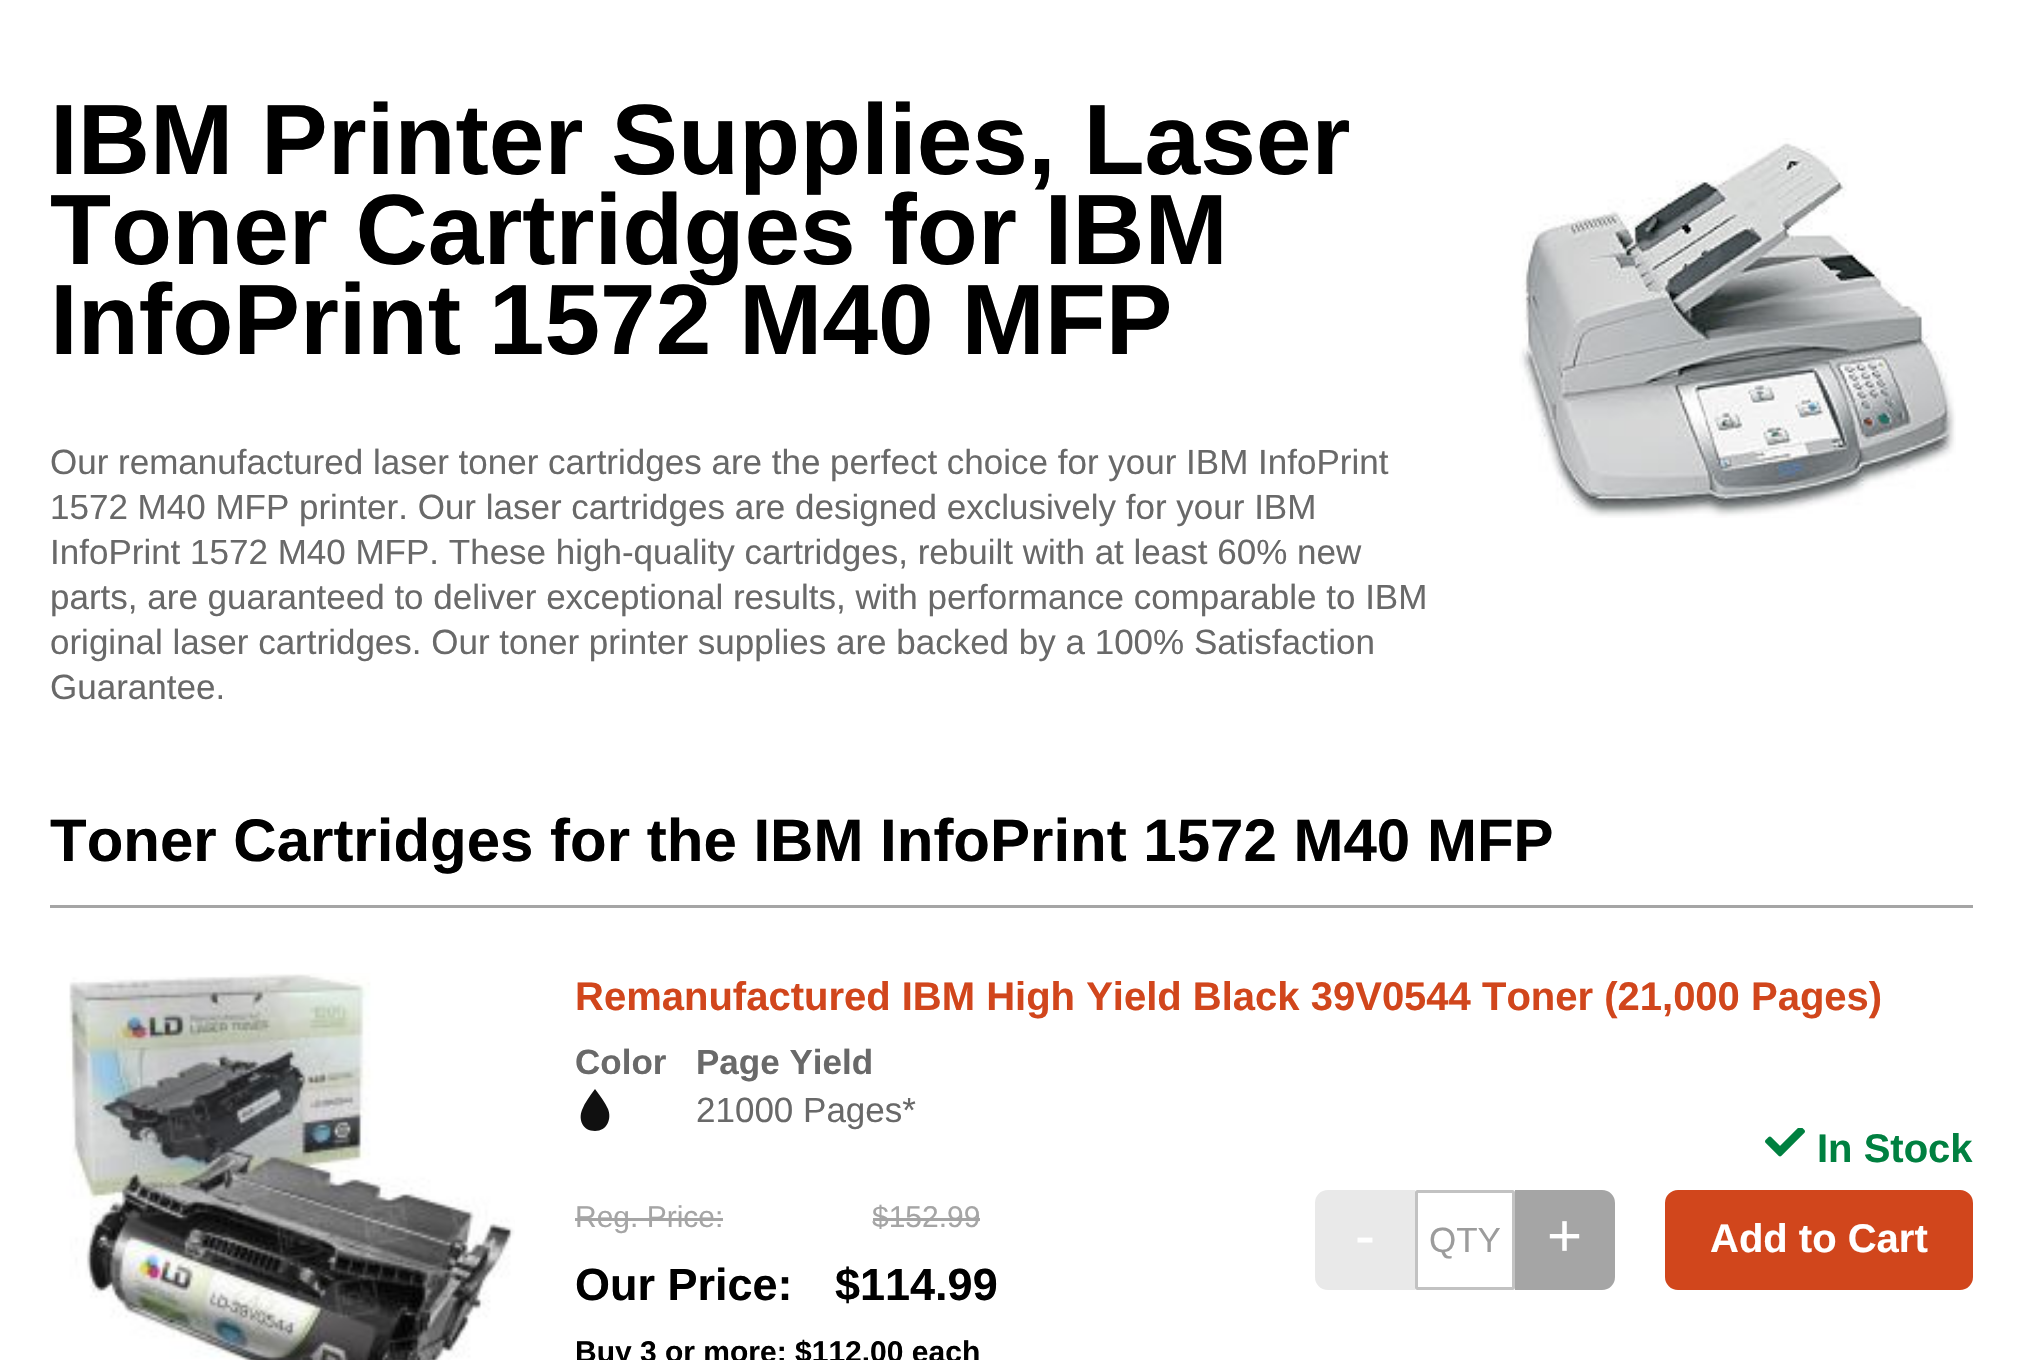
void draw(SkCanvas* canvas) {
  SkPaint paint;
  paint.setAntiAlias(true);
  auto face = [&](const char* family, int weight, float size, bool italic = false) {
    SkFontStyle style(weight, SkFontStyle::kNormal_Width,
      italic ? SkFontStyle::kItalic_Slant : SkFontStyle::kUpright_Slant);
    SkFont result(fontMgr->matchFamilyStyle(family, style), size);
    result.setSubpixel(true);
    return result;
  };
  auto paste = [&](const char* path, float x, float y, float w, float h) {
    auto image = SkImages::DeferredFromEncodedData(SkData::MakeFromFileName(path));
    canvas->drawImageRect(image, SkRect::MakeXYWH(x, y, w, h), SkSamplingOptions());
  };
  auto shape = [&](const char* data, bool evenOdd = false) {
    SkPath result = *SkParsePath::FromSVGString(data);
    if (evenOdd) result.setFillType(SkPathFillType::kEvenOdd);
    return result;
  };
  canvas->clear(0xffffffff);
  paste("img/1.png", 1519, 138, 437, 380);
  paint.setColor(0xffa5a5a5);
  canvas->drawRect(SkRect::MakeXYWH(50, 905, 1923, 3), paint);
  paste("img/2.png", 66, 973, 449, 387);
  paint.setColor(0xff101010);
  canvas->drawPath(shape("M595 1131C583 1131 578 1120 582 1110C585 1102 590 1096 595 1089C600 1096 605 1102 608 1109C612 1119 607 1131 595 1131Z"), paint);
  paint.setColor(0xffa5a5a5);
  canvas->drawRect(SkRect::MakeXYWH(575, 1218, 148, 3), paint);
  canvas->drawRect(SkRect::MakeXYWH(873, 1218, 107, 3), paint);
  paste("img/3.png", 1765, 1128, 40, 29);
  paint.setColor(0xffe9e9e9);
  canvas->drawPath(shape("M1328 1191.5H1413.5V1288.5H1328C1321.5 1288.5 1316.5 1283.5 1316.5 1277V1203C1316.5 1196.5 1321.5 1191.5 1328 1191.5Z"), paint);
  paint.setStroke(true);
  paint.setStrokeWidth(3);
  canvas->drawPath(shape("M1328 1191.5H1413.5V1288.5H1328C1321.5 1288.5 1316.5 1283.5 1316.5 1277V1203C1316.5 1196.5 1321.5 1191.5 1328 1191.5Z"), paint);
  paint.setColor(0xffc2c2c2);
  canvas->drawRoundRect(SkRect::MakeXYWH(1416.5f, 1191.5f, 97, 97), 1, 1, paint);
  paint.setStroke(false);
  paint.setColor(0xffa5a5a5);
  canvas->drawPath(shape("M1516.5 1191.5H1602C1608.5 1191.5 1613.5 1196.5 1613.5 1203V1277C1613.5 1283.5 1608.5 1288.5 1602 1288.5H1516.5Z"), paint);
  paint.setStroke(true);
  canvas->drawPath(shape("M1516.5 1191.5H1602C1608.5 1191.5 1613.5 1196.5 1613.5 1203V1277C1613.5 1283.5 1608.5 1288.5 1602 1288.5H1516.5Z"), paint);
  paint.setStroke(false);
  paint.setColor(0xffd1461c);
  canvas->drawRoundRect(SkRect::MakeXYWH(1666.5f, 1191.5f, 305, 97), 11.5f, 11.5f, paint);
  paint.setStroke(true);
  canvas->drawRoundRect(SkRect::MakeXYWH(1666.5f, 1191.5f, 305, 97), 11.5f, 11.5f, paint);
  auto f0 = face("Liberation Sans", 700, 100);
  paint.setStroke(false);
  paint.setColor(0xff000000);
  {
    const struct { const char* s; float x, y; } items[] = {
      {"IBM Printer Supplies, Laser", 50, 174},
      {"Toner Cartridges for IBM", 50, 264},
      {"InfoPrint 1572 M40 MFP", 50, 354},
    };
    for (auto [s, x, y] : items) {
      canvas->drawString(s, x, y, f0, paint);
    }
  }
  auto f1 = face("Liberation Sans", 400, 35);
  paint.setColor(0xff696969);
  {
    const struct { const char* s; float x, y; } items[] = {
      {"Our remanufactured laser toner cartridges are the perfect choice for your IBM InfoPrint", 50, 474},
      {"1572 M40 MFP printer. Our laser cartridges are designed exclusively for your IBM", 50, 519},
      {"InfoPrint 1572 M40 MFP. These high-quality cartridges, rebuilt with at least 60% new", 50, 564},
      {"parts, are guaranteed to deliver exceptional results, with performance comparable to IBM", 50, 609},
      {"original laser cartridges. Our toner printer supplies are backed by a 100% Satisfaction", 50, 654},
      {"Guarantee.", 50, 699},
    };
    for (auto [s, x, y] : items) {
      canvas->drawString(s, x, y, f1, paint);
    }
  }
  auto f2 = face("Liberation Sans", 700, 60);
  paint.setColor(0xff000000);
  canvas->drawString("Toner Cartridges for the IBM InfoPrint 1572 M40 MFP", 50, 861, f2, paint);
  auto f3 = face("Liberation Sans", 700, 40);
  paint.setColor(0xffd1461c);
  canvas->drawString("Remanufactured IBM High Yield Black 39V0544 Toner (21,000 Pages)", 575, 1010, f3, paint);
  auto f4 = face("Liberation Sans", 700, 35);
  paint.setColor(0xff696969);
  canvas->drawString("Color", 575, 1074, f4, paint);
  canvas->drawString("Page Yield", 696, 1074, f4, paint);
  canvas->drawString("21000 Pages*", 696, 1122, f1, paint);
  auto f5 = face("Liberation Sans", 400, 30);
  paint.setColor(0xffa5a5a5);
  canvas->drawString("Reg. Price:", 575, 1227, f5, paint);
  canvas->drawString("$152.99", 872, 1227, f5, paint);
  auto f6 = face("Liberation Sans", 700, 45);
  paint.setColor(0xff000000);
  canvas->drawString("Our Price:", 575, 1300, f6, paint);
  canvas->drawString("$114.99", 835, 1300, f6, paint);
  auto f7 = face("Liberation Sans", 700, 30);
  canvas->drawString("Buy 3 or more: $112.00 each", 575, 1362, f7, paint);
  paint.setColor(0xff008040);
  canvas->drawString("In Stock", 1817, 1162, f3, paint);
  auto f8 = face("Liberation Sans", 400, 60);
  paint.setColor(0xffffffff);
  canvas->drawString("-", 1355, 1256, f8, paint);
  paint.setColor(0xff9c9c9c);
  canvas->drawString("QTY", 1429, 1252, f1, paint);
  paint.setColor(0xffffffff);
  canvas->drawString("+", 1547, 1256, f8, paint);
  canvas->drawString("Add to Cart", 1710, 1252, f3, paint);
}
